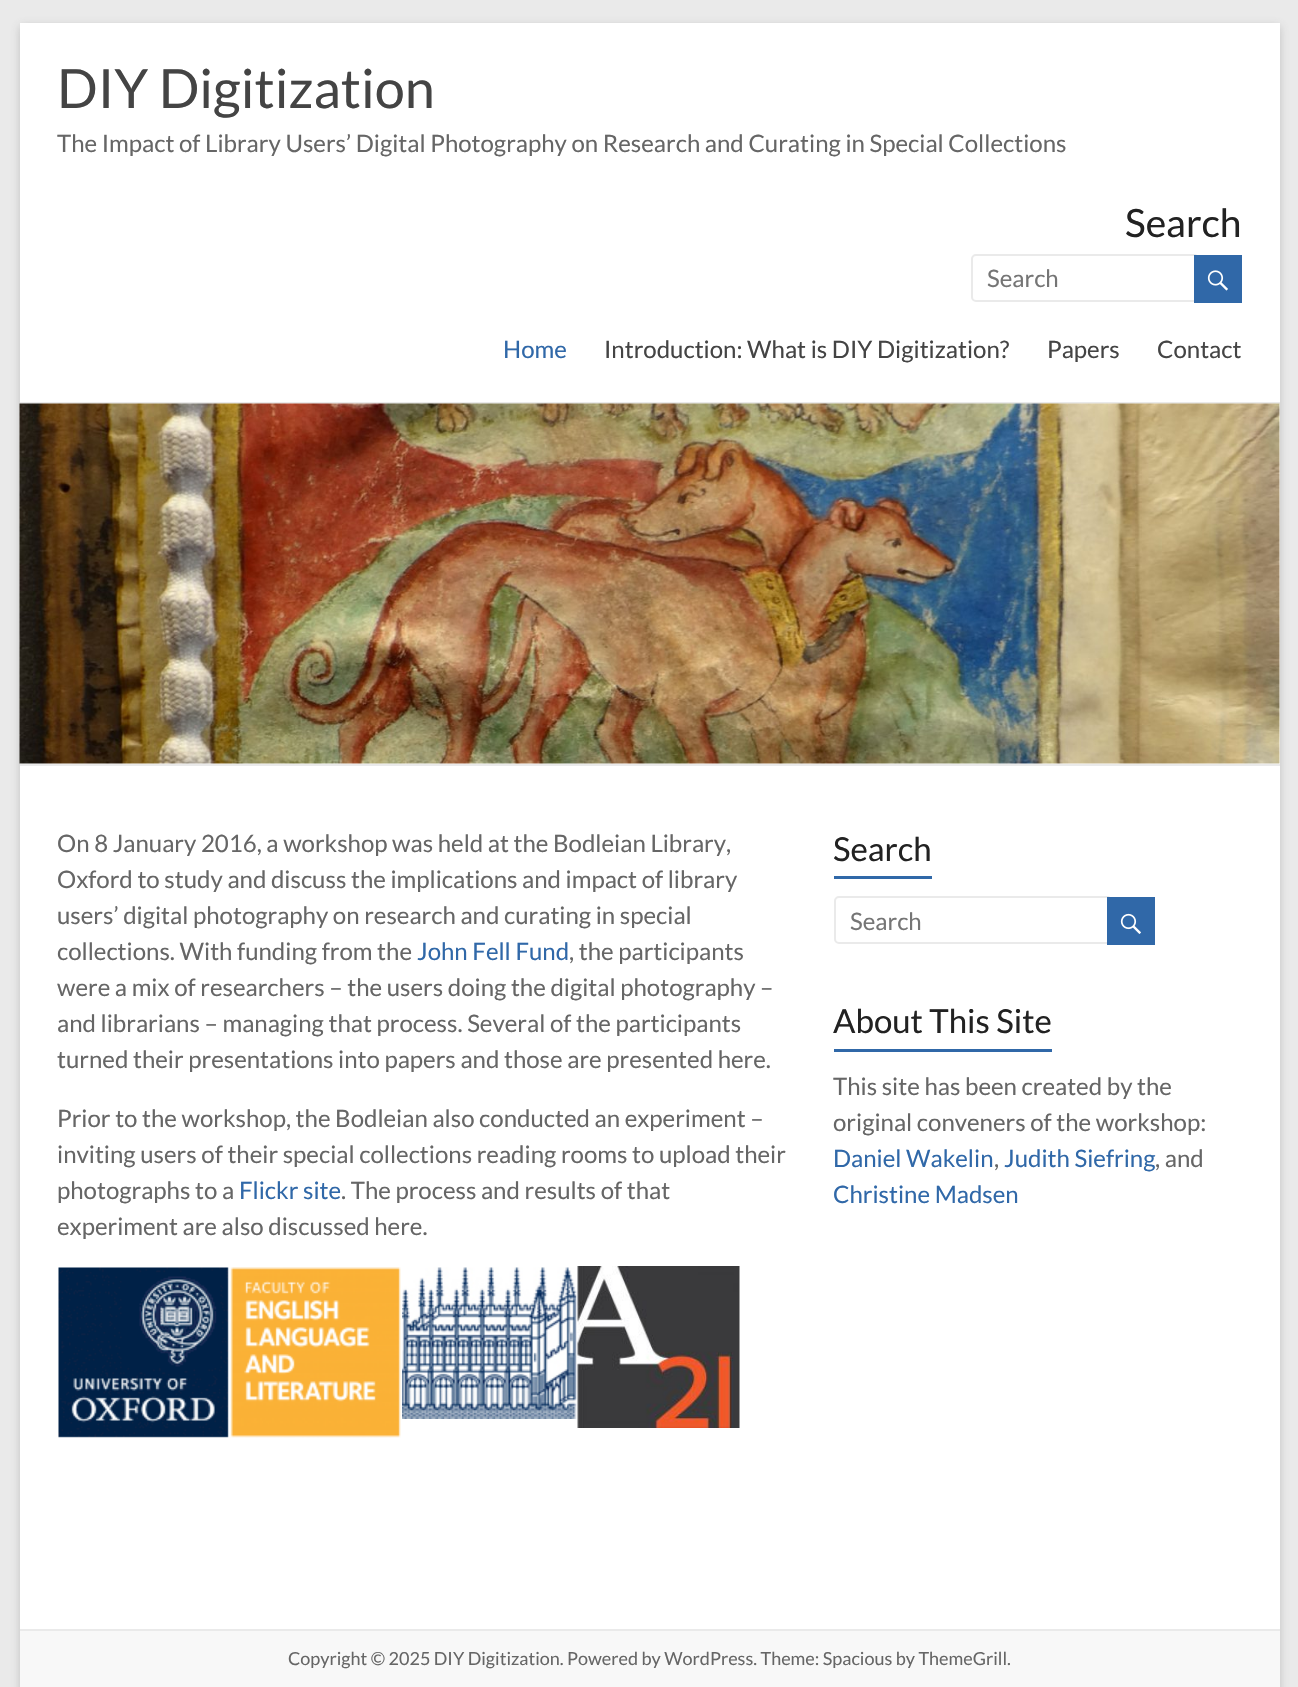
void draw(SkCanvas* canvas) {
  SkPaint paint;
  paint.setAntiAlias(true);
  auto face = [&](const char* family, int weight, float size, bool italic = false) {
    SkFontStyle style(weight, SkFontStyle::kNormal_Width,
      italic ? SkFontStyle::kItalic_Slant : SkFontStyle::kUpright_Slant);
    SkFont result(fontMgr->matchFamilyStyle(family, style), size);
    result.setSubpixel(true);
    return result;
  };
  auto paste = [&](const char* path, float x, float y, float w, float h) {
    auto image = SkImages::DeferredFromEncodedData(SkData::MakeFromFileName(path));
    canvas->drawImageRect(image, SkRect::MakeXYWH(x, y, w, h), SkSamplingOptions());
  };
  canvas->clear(0xffeaeaea);
  paint.setColor(0x4d646464);
  paint.setMaskFilter(SkMaskFilter::MakeBlur(kNormal_SkBlurStyle, 4.5f));
  canvas->drawRect(SkRect::MakeXYWH(20, 26, 1260, 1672), paint);
  paint.setMaskFilter(nullptr);
  paint.setColor(0xffffffff);
  canvas->drawRect(SkRect::MakeXYWH(20, 23, 1260, 1606), paint);
  paint.setColor(0xffeaeaea);
  canvas->drawRect(SkRect::MakeXYWH(20, 402, 1260, 2), paint);
  paint.setStroke(true);
  paint.setStrokeWidth(2);
  canvas->drawRoundRect(SkRect::MakeXYWH(972, 255, 226, 46), 4, 4, paint);
  paint.setStroke(false);
  paint.setColor(0xff3068a8);
  canvas->drawRect(SkRect::MakeXYWH(1194, 255, 48, 48), paint);
  paste("img/1.png", 1207, 270, 21, 21);
  paste("img/2.png", 19, 403, 1261, 361);
  paint.setColor(0xffeaeaea);
  canvas->drawRect(SkRect::MakeXYWH(20, 764, 1260, 2), paint);
  paste("img/3.png", 58, 1267, 171, 171);
  paste("img/4.png", 230, 1267, 171, 171);
  paste("img/5.png", 402, 1267, 175, 152);
  paste("img/6.png", 577, 1266, 163, 162);
  paint.setColor(0xff3068a8);
  canvas->drawRect(SkRect::MakeXYWH(834, 876, 98, 3), paint);
  paint.setStroke(true);
  paint.setColor(0xffeaeaea);
  canvas->drawRoundRect(SkRect::MakeXYWH(835, 897, 276, 46), 4, 4, paint);
  paint.setStroke(false);
  paint.setColor(0xff3068a8);
  canvas->drawRect(SkRect::MakeXYWH(1107, 897, 48, 48), paint);
  paste("img/7.png", 1120, 913, 21, 21);
  {
    const struct { float x, y, w, h; SkColor color; } items[] = {
      {834, 1049, 218, 3, 0xff3068a8},
      {20, 1631, 1260, 56, 0xfff8f8f8},
      {20, 1629, 1260, 2, 0xffeaeaea},
    };
    for (auto [x, y, w, h, color] : items) {
      paint.setColor(color);
      canvas->drawRect(SkRect::MakeXYWH(x, y, w, h), paint);
    }
  }
  auto f0 = face("Lato", 400, 54);
  paint.setColor(0xff444444);
  canvas->drawString("DIY Digitization", 57, 108, f0, paint);
  auto f1 = face("Lato", 400, 24);
  paint.setColor(0xff666666);
  canvas->drawString("The Impact of Library Users’ Digital Photography on Research and Curating in Special Collections", 57, 152, f1, paint);
  auto f2 = face("Lato", 400, 39);
  paint.setColor(0xff222222);
  canvas->drawString("Search", 1125, 237, f2, paint);
  paint.setColor(0xff757575);
  canvas->drawString("Search", 987, 287, f1, paint);
  paint.setColor(0xff3068a8);
  canvas->drawString("Home", 503, 358, f1, paint);
  paint.setColor(0xff444444);
  {
    const struct { const char* s; float x, y; } items[] = {
      {"Introduction: What is DIY Digitization?", 604, 358},
      {"Papers", 1047, 358},
      {"Contact", 1157, 358},
    };
    for (auto [s, x, y] : items) {
      canvas->drawString(s, x, y, f1, paint);
    }
  }
  paint.setColor(0xff666666);
  {
    const struct { const char* s; float x, y; } items[] = {
      {"On 8 January 2016, a workshop was held at the Bodleian Library,", 57, 852},
      {"Oxford to study and discuss the implications and impact of library", 57, 888},
      {"users’ digital photography on research and curating in special", 57, 924},
      {"collections. With funding from the", 57, 960},
    };
    for (auto [s, x, y] : items) {
      canvas->drawString(s, x, y, f1, paint);
    }
  }
  paint.setColor(0xff3068a8);
  canvas->drawString("John Fell Fund", 417, 960, f1, paint);
  paint.setColor(0xff666666);
  {
    const struct { const char* s; float x, y; } items[] = {
      {", the participants", 569, 960},
      {"were a mix of researchers – the users doing the digital photography –", 57, 996},
      {"and librarians – managing that process. Several of the participants", 57, 1032},
      {"turned their presentations into papers and those are presented here.", 57, 1068},
      {"Prior to the workshop, the Bodleian also conducted an experiment –", 57, 1127},
      {"inviting users of their special collections reading rooms to upload their", 57, 1163},
      {"photographs to a", 57, 1199},
    };
    for (auto [s, x, y] : items) {
      canvas->drawString(s, x, y, f1, paint);
    }
  }
  paint.setColor(0xff3068a8);
  canvas->drawString("Flickr site", 239, 1199, f1, paint);
  paint.setColor(0xff666666);
  canvas->drawString(". The process and results of that", 341, 1199, f1, paint);
  canvas->drawString("experiment are also discussed here.", 57, 1235, f1, paint);
  auto f3 = face("Lato", 400, 33);
  paint.setColor(0xff222222);
  canvas->drawString("Search", 833, 861, f3, paint);
  paint.setColor(0xff757575);
  canvas->drawString("Search", 850, 930, f1, paint);
  paint.setColor(0xff222222);
  canvas->drawString("About This Site", 833, 1033, f3, paint);
  paint.setColor(0xff666666);
  canvas->drawString("This site has been created by the", 833, 1095, f1, paint);
  canvas->drawString("original conveners of the workshop:", 833, 1131, f1, paint);
  paint.setColor(0xff3068a8);
  canvas->drawString("Daniel Wakelin", 833, 1167, f1, paint);
  paint.setColor(0xff666666);
  canvas->drawString(",", 994, 1167, f1, paint);
  paint.setColor(0xff3068a8);
  canvas->drawString("Judith Siefring", 1004, 1167, f1, paint);
  paint.setColor(0xff666666);
  canvas->drawString(", and", 1155, 1167, f1, paint);
  paint.setColor(0xff3068a8);
  canvas->drawString("Christine Madsen", 833, 1203, f1, paint);
  auto f4 = face("Lato", 400, 18);
  paint.setColor(0xff666666);
  canvas->drawString("Copyright © 2025 DIY Digitization. Powered by WordPress. Theme: Spacious by ThemeGrill.", 288, 1665, f4, paint);
}
